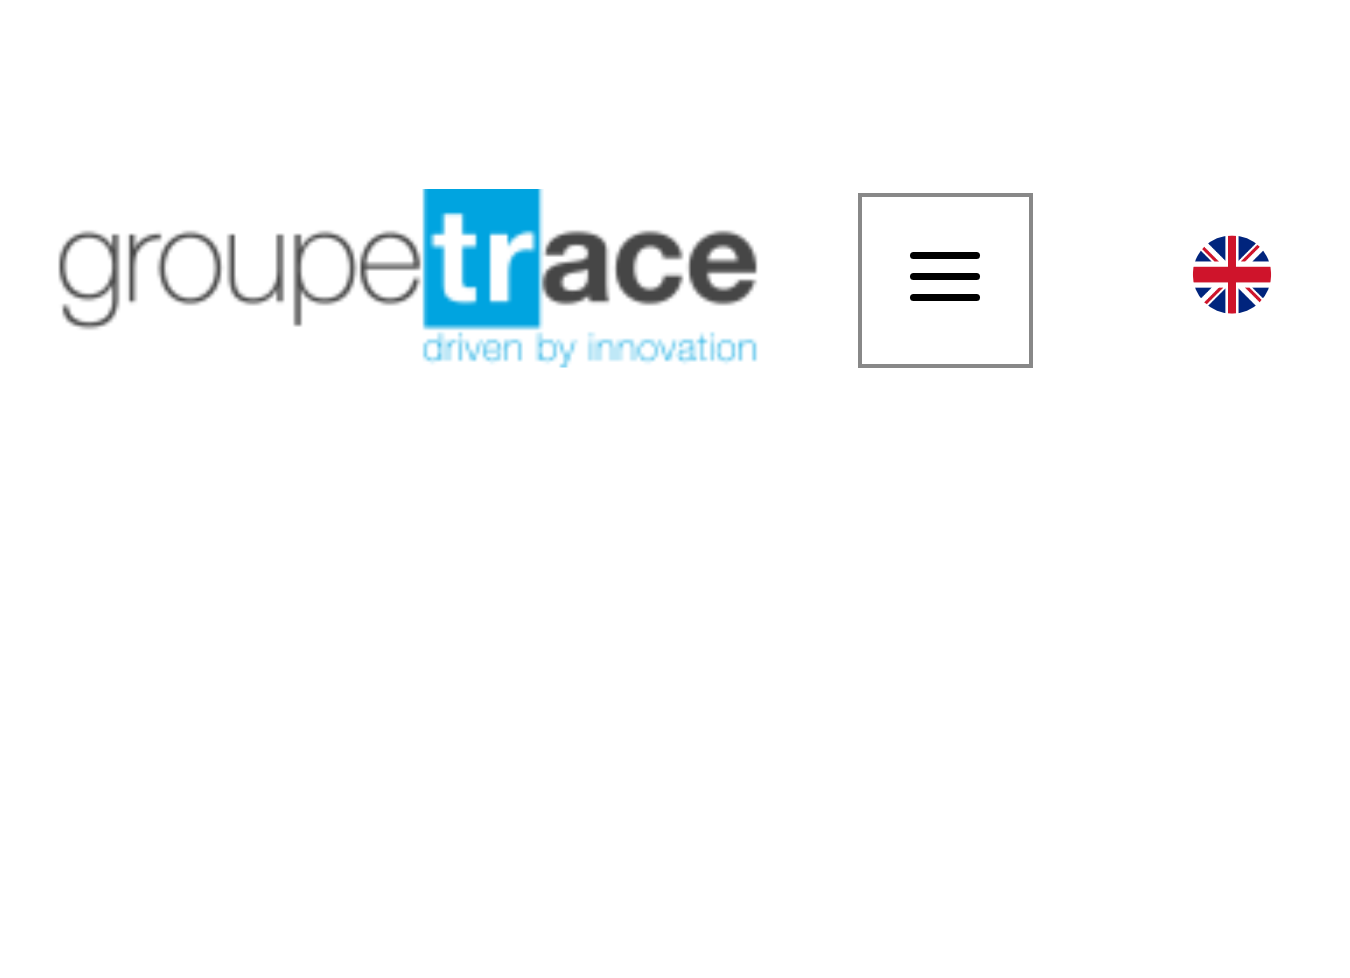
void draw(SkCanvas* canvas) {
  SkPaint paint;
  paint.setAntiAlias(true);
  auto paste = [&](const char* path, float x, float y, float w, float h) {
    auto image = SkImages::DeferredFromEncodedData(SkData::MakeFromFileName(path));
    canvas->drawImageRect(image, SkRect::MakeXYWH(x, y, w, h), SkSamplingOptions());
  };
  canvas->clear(0xffffffff);
  paste("img/1.png", 58, 189, 700, 179);
  paint.setStroke(true);
  paint.setStrokeWidth(4);
  paint.setColor(0xff888888);
  canvas->drawRect(SkRect::MakeXYWH(860, 195, 171, 171), paint);
  paint.setStroke(false);
  paint.setColor(0xff000000);
  canvas->drawRoundRect(SkRect::MakeXYWH(910, 252, 70, 7), 3.5f, 3.5f, paint);
  canvas->drawRoundRect(SkRect::MakeXYWH(910, 273, 70, 7), 3.5f, 3.5f, paint);
  canvas->drawRoundRect(SkRect::MakeXYWH(910, 294, 70, 7), 3.5f, 3.5f, paint);
  paste("img/2.png", 1192, 235, 80, 79);
}
